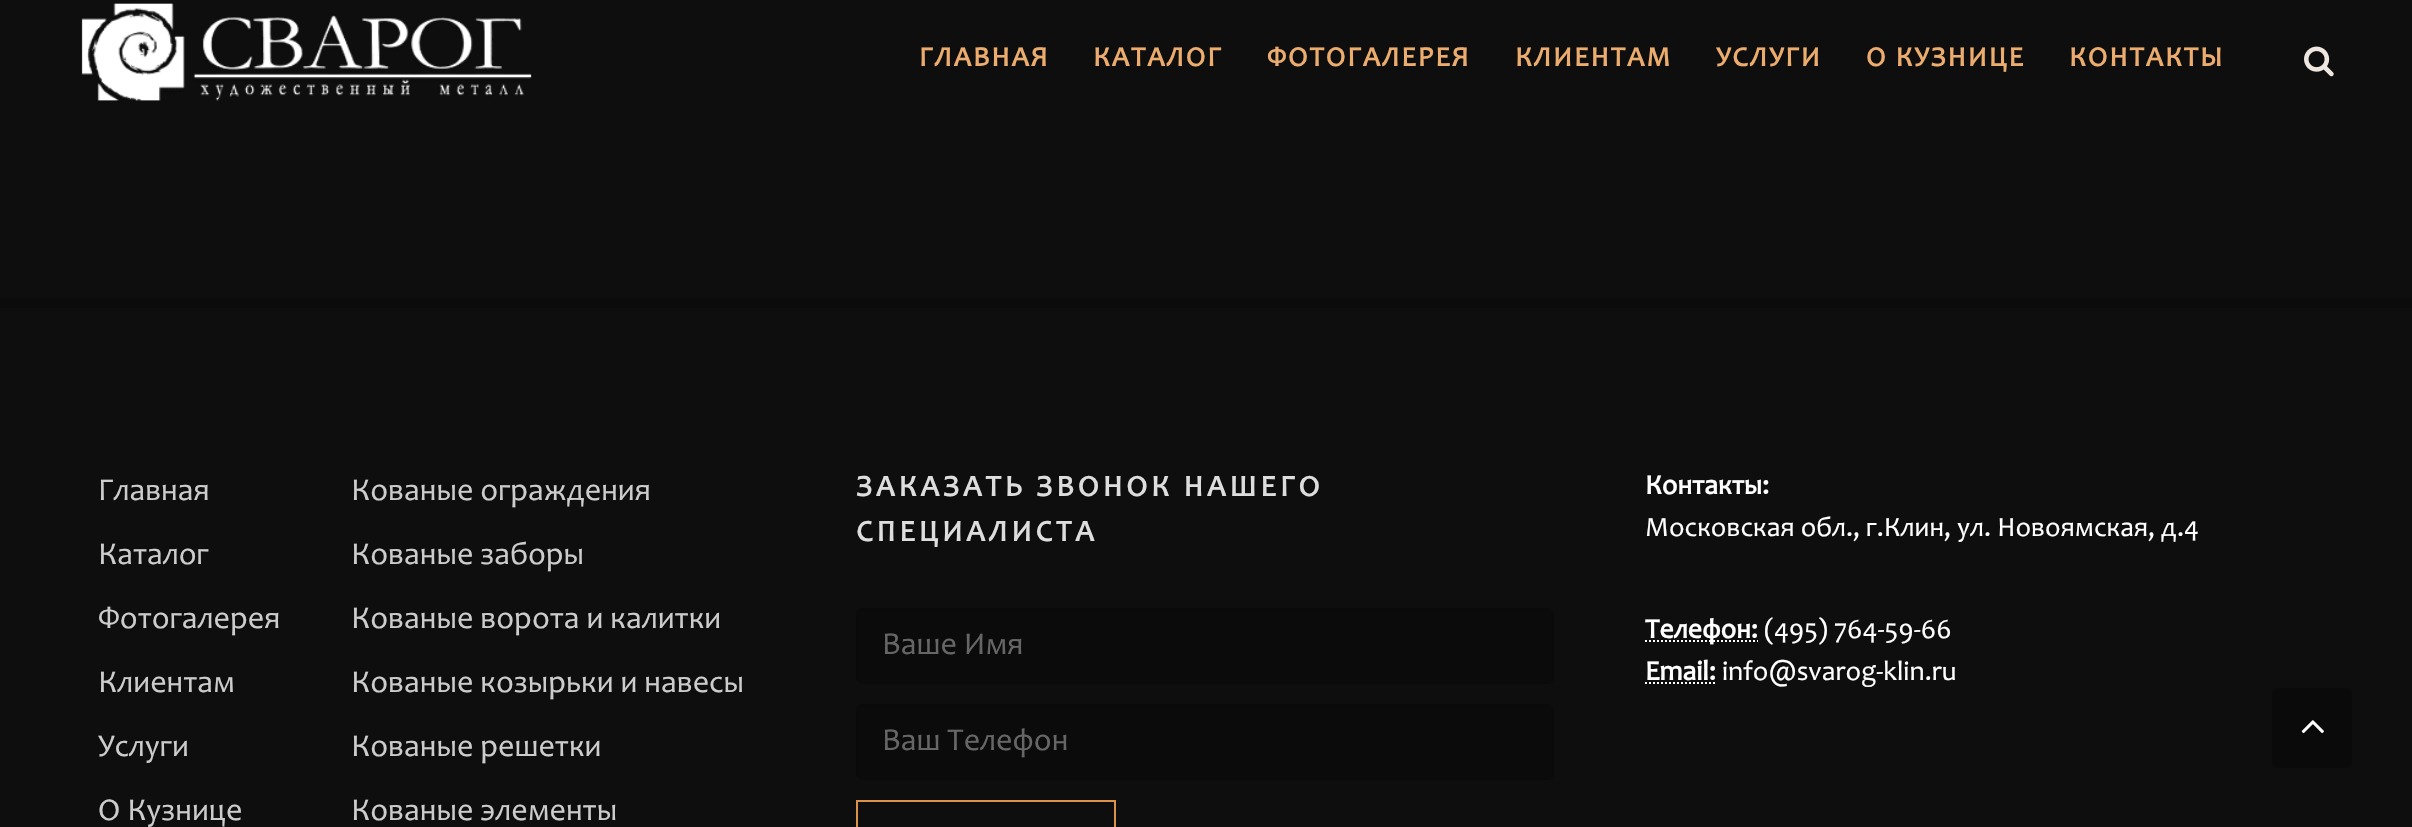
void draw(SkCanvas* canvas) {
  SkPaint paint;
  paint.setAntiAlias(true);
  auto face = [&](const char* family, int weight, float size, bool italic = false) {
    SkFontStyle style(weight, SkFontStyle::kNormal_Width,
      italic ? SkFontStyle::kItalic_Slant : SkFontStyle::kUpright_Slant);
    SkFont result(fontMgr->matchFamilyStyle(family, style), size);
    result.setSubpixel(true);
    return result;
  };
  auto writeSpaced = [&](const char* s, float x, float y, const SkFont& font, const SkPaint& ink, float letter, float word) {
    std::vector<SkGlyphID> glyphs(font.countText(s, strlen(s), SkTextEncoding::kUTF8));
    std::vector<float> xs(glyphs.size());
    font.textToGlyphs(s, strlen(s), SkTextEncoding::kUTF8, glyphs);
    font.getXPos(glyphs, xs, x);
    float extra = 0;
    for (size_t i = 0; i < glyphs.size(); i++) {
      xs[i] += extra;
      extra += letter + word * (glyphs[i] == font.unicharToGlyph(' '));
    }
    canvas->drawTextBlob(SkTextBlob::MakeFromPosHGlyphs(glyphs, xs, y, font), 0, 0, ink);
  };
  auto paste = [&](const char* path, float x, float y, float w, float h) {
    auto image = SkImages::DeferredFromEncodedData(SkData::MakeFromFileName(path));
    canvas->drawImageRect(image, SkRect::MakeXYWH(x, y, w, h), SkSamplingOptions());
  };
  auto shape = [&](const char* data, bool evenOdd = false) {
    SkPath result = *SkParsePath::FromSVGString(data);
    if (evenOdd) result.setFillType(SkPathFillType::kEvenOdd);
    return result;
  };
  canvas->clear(0xff0e0e0e);
  paste("img/1.png", 81, 3, 451, 98);
  paste("img/2.png", 2304, 46, 30, 31);
  paint.setColor(0xff0b0b0b);
  canvas->drawRect(SkRect::MakeXYWH(0, 298, 2412, 10), paint);
  canvas->drawRoundRect(SkRect::MakeXYWH(857, 609, 696, 74), 5, 5, paint);
  paint.setStroke(true);
  paint.setStrokeWidth(2);
  paint.setColor(0xff0a0a0a);
  canvas->drawRoundRect(SkRect::MakeXYWH(857, 609, 696, 74), 5, 5, paint);
  paint.setStroke(false);
  paint.setColor(0xff0b0b0b);
  canvas->drawRoundRect(SkRect::MakeXYWH(857, 705, 696, 74), 5, 5, paint);
  paint.setStroke(true);
  paint.setColor(0xff0a0a0a);
  canvas->drawRoundRect(SkRect::MakeXYWH(857, 705, 696, 74), 5, 5, paint);
  paint.setColor(0xffdc9249);
  canvas->drawRect(SkRect::MakeXYWH(857, 801, 258, 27), paint);
  paint.setColor(0xffffffff);
  paint.setPathEffect(SkDashPathEffect::Make({{2, 2}}, 0));
  canvas->drawPath(shape("M1645 641H1758"), paint);
  paint.setPathEffect(nullptr);
  paint.setPathEffect(SkDashPathEffect::Make({{2, 2}}, 0));
  canvas->drawPath(shape("M1645 683H1716"), paint);
  paint.setPathEffect(nullptr);
  paint.setStroke(false);
  paint.setColor(0xff0a0a0a);
  canvas->drawRoundRect(SkRect::MakeXYWH(2272, 688, 80, 80), 4, 4, paint);
  paste("img/3.png", 2301, 720, 23, 14);
  auto f0 = face("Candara", 700, 28);
  paint.setColor(0xffecac6d);
  {
    const struct { const char* s; float x, y; } items[] = {
      {"ГЛАВНАЯ", 919, 66},
      {"КАТАЛОГ", 1093, 66},
      {"ФОТОГАЛЕРЕЯ", 1267, 66},
      {"КЛИЕНТАМ", 1515, 66},
      {"УСЛУГИ", 1716, 66},
      {"О КУЗНИЦЕ", 1866, 66},
      {"КОНТАКТЫ", 2069, 66},
    };
    for (auto [s, x, y] : items) {
      writeSpaced(s, x, y, f0, paint, 2, 0);
    }
  }
  auto f1 = face("Candara", 400, 32);
  paint.setColor(0xffcccccc);
  {
    const struct { const char* s; float x, y; } items[] = {
      {"Главная", 98, 500},
      {"Каталог", 98, 564},
      {"Фотогалерея", 98, 628},
      {"Клиентам", 98, 692},
      {"Услуги", 98, 756},
      {"О Кузнице", 98, 820},
      {"Кованые ограждения", 351, 500},
      {"Кованые заборы", 351, 564},
      {"Кованые ворота и калитки", 351, 628},
      {"Кованые козырьки и навесы", 351, 692},
      {"Кованые решетки", 351, 756},
      {"Кованые элементы", 351, 820},
    };
    for (auto [s, x, y] : items) {
      canvas->drawString(s, x, y, f1, paint);
    }
  }
  auto f2 = face("Candara", 700, 30);
  paint.setColor(0xffdddddd);
  writeSpaced("ЗАКАЗАТЬ ЗВОНОК НАШЕГО", 856, 496, f2, paint, 4, 0);
  writeSpaced("СПЕЦИАЛИСТА", 856, 541, f2, paint, 4, 0);
  paint.setColor(0xff666666);
  canvas->drawString("Ваше Имя", 882, 654, f1, paint);
  canvas->drawString("Ваш Телефон", 882, 750, f1, paint);
  paint.setColor(0xffffffff);
  canvas->drawString("Контакты:", 1645, 494, f0, paint);
  auto f3 = face("Candara", 400, 28);
  canvas->drawString("Московская обл., г.Клин, ул. Новоямская, д.4", 1645, 536, f3, paint);
  canvas->drawString("Телефон:", 1645, 638, f0, paint);
  canvas->drawString("(495) 764-59-66", 1764, 638, f3, paint);
  canvas->drawString("Email:", 1645, 680, f0, paint);
  canvas->drawString("info@svarog-klin.ru", 1722, 680, f3, paint);
}
